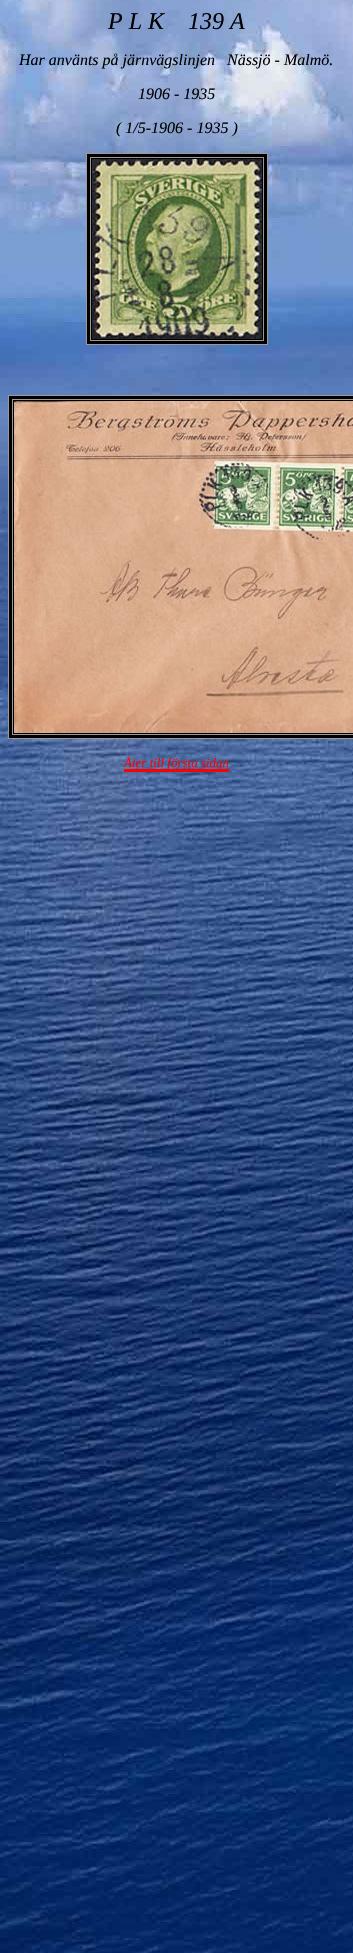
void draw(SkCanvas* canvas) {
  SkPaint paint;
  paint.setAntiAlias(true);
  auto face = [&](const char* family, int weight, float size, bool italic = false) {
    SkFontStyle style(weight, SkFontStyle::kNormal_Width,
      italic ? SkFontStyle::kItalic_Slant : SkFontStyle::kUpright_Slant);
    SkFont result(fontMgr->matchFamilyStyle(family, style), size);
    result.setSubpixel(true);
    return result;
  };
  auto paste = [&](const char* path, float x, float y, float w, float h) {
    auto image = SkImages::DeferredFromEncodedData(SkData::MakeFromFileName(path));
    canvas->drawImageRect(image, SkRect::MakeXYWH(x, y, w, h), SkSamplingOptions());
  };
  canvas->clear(0xffffffff);
  paste("img/1.png", 0, 0, 353, 1953);
  paint.setColor(0xff000000);
  canvas->drawRect(SkRect::MakeXYWH(86.5f, 153.5f, 181, 191), paint);
  paint.setStroke(true);
  paint.setStrokeWidth(1);
  paint.setColor(0xff999999);
  canvas->drawRect(SkRect::MakeXYWH(86.5f, 153.5f, 181, 191), paint);
  canvas->drawRect(SkRect::MakeXYWH(90.5f, 157.5f, 173, 183), paint);
  paste("img/2.png", 92, 159, 170, 180);
  paint.setStroke(false);
  paint.setColor(0xff000000);
  canvas->drawRect(SkRect::MakeXYWH(8.5f, 395.5f, 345, 343), paint);
  paint.setStroke(true);
  paint.setColor(0xff999999);
  canvas->drawRect(SkRect::MakeXYWH(8.5f, 395.5f, 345, 343), paint);
  canvas->drawRect(SkRect::MakeXYWH(12.5f, 399.5f, 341, 335), paint);
  paste("img/3.png", 14, 401, 339, 332);
  paint.setStroke(false);
  paint.setColor(0xffff0000);
  canvas->drawRect(SkRect::MakeXYWH(124, 769, 105, 3), paint);
  auto f0 = face("Liberation Serif", 400, 24, true);
  paint.setColor(0xff000000);
  canvas->drawString("P L K    139 A", 108, 29, f0, paint);
  auto f1 = face("Liberation Serif", 400, 16, true);
  {
    const struct { const char* s; float x, y; } items[] = {
      {"Har använts på järnvägslinjen   Nässjö - Malmö.", 19, 65},
      {"1906 - 1935", 138, 99},
      {"( 1/5-1906 - 1935 )", 116, 133},
    };
    for (auto [s, x, y] : items) {
      canvas->drawString(s, x, y, f1, paint);
    }
  }
  auto f2 = face("Liberation Serif", 400, 13, true);
  paint.setColor(0xffff0000);
  canvas->drawString("Åter till första sidan", 124, 767, f2, paint);
}
